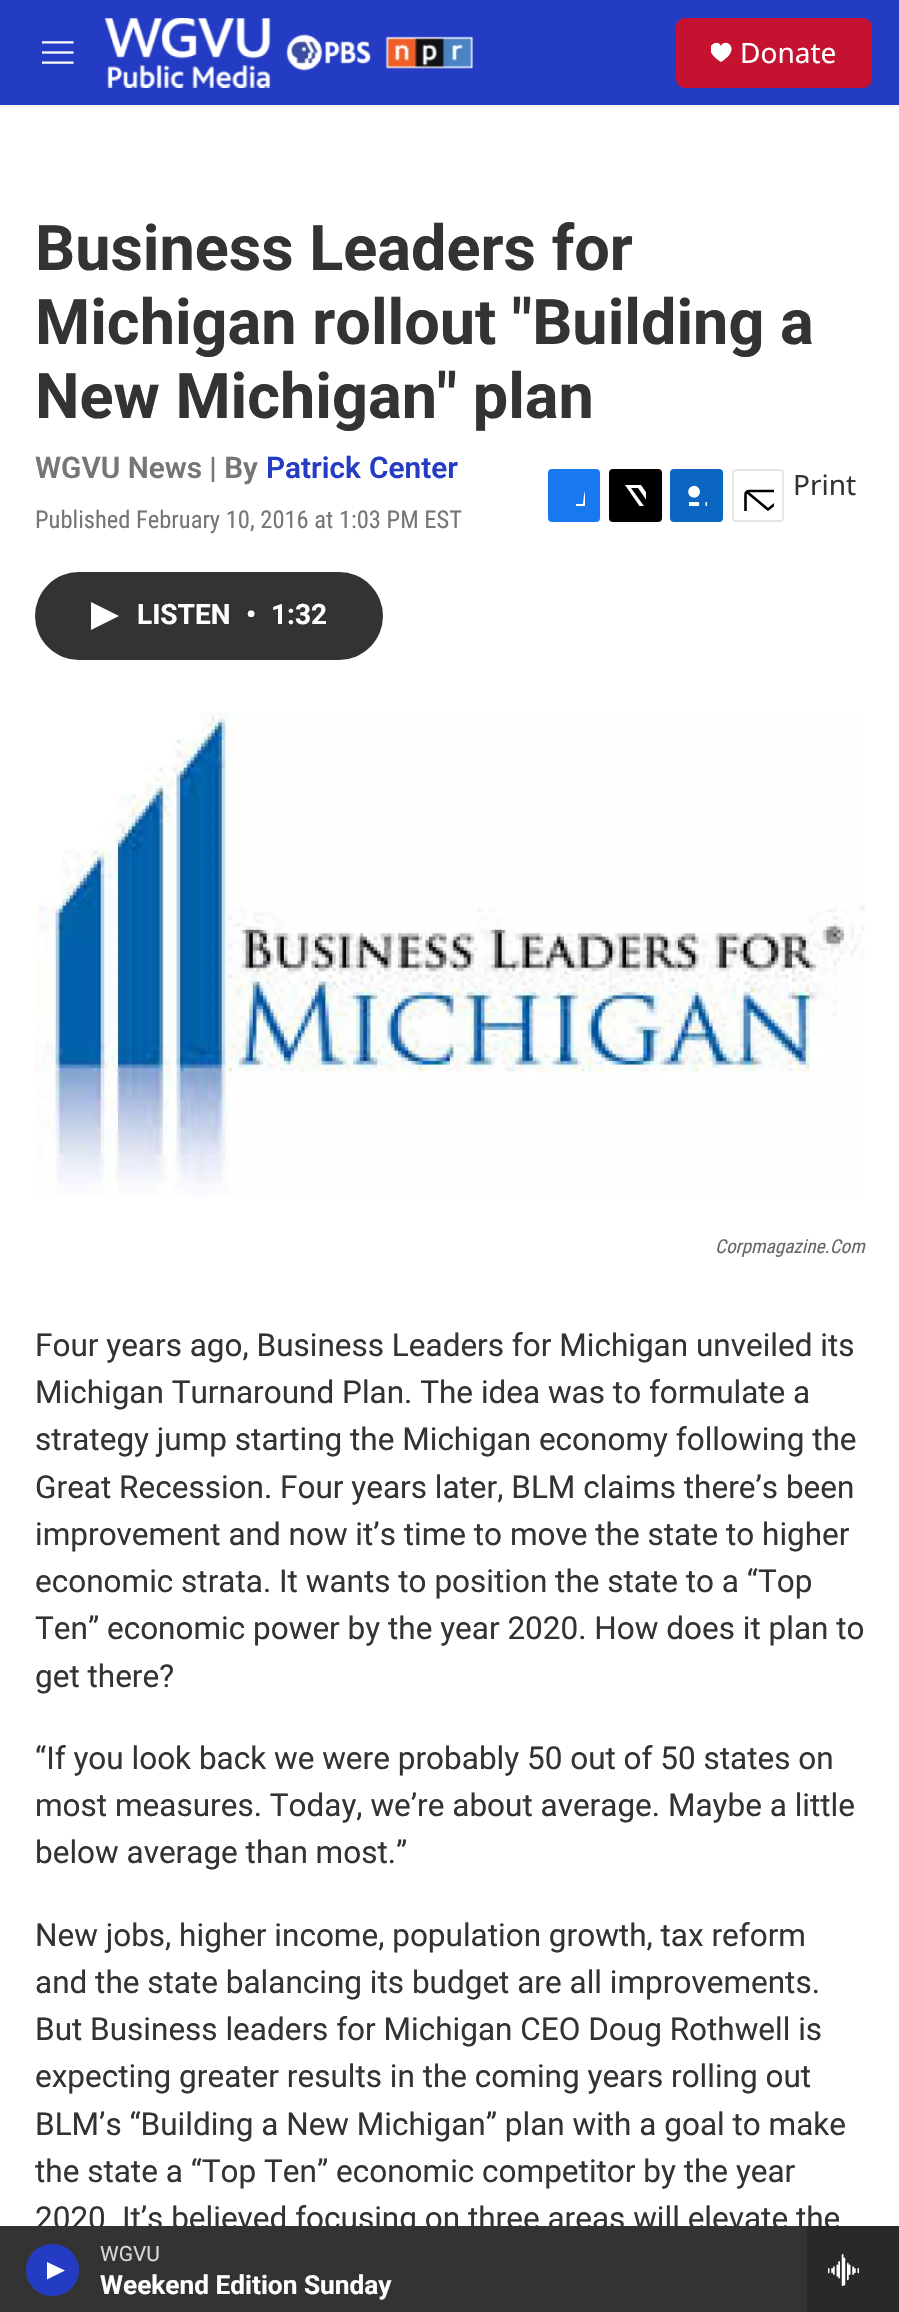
void draw(SkCanvas* canvas) {
  SkPaint paint;
  paint.setAntiAlias(true);
  auto face = [&](const char* family, int weight, float size, bool italic = false) {
    SkFontStyle style(weight, SkFontStyle::kNormal_Width,
      italic ? SkFontStyle::kItalic_Slant : SkFontStyle::kUpright_Slant);
    SkFont result(fontMgr->matchFamilyStyle(family, style), size);
    result.setSubpixel(true);
    return result;
  };
  auto writeSpaced = [&](const char* s, float x, float y, const SkFont& font, const SkPaint& ink, float letter, float word) {
    std::vector<SkGlyphID> glyphs(font.countText(s, strlen(s), SkTextEncoding::kUTF8));
    std::vector<float> xs(glyphs.size());
    font.textToGlyphs(s, strlen(s), SkTextEncoding::kUTF8, glyphs);
    font.getXPos(glyphs, xs, x);
    float extra = 0;
    for (size_t i = 0; i < glyphs.size(); i++) {
      xs[i] += extra;
      extra += letter + word * (glyphs[i] == font.unicharToGlyph(' '));
    }
    canvas->drawTextBlob(SkTextBlob::MakeFromPosHGlyphs(glyphs, xs, y, font), 0, 0, ink);
  };
  auto paste = [&](const char* path, float x, float y, float w, float h) {
    auto image = SkImages::DeferredFromEncodedData(SkData::MakeFromFileName(path));
    canvas->drawImageRect(image, SkRect::MakeXYWH(x, y, w, h), SkSamplingOptions());
  };
  auto shape = [&](const char* data, bool evenOdd = false) {
    SkPath result = *SkParsePath::FromSVGString(data);
    if (evenOdd) result.setFillType(SkPathFillType::kEvenOdd);
    return result;
  };
  canvas->clear(0xffffffff);
  paint.setColor(0xff243cc4);
  canvas->drawRect(SkRect::MakeXYWH(0, 0, 899, 105), paint);
  paint.setColor(0xfff5f5f5);
  canvas->drawRect(SkRect::MakeXYWH(0, 105, 899, 2), paint);
  paste("img/1.png", 42, 41, 32, 23);
  paste("img/2.png", 105, 18, 368, 70);
  paint.setColor(0xffc41230);
  canvas->drawRoundRect(SkRect::MakeXYWH(676, 18, 196, 70), 9, 9, paint);
  canvas->save();
  canvas->clipRect(SkRect::MakeXYWH(711, 42, 21, 21));
  paint.setColor(0xffffffff);
  canvas->drawPath(shape("M721 46C717.5 37 699 48.5 721 62C743 48.5 724.5 37 721 46Z"), paint);
  canvas->restore();
  paint.setColor(0xff333333);
  canvas->drawRect(SkRect::MakeXYWH(0, 2226, 807, 86), paint);
  paint.setColor(0xff243cc4);
  canvas->drawRoundRect(SkRect::MakeXYWH(26, 2244, 53, 52), 26, 26, paint);
  paint.setColor(0xffffffff);
  canvas->drawPath(shape("M47 2262L65 2270.5L47 2279.5Z"), paint);
  paint.setColor(0xff1778f2);
  canvas->drawRoundRect(SkRect::MakeXYWH(548, 469, 52, 53), 4, 4, paint);
  canvas->save();
  canvas->clipRect(SkRect::MakeXYWH(564, 485, 21, 21));
  paint.setColor(0xffffffff);
  canvas->drawPath(shape("M593 522H583V513H576V504H583C584.5 491 583.5 484 600 486V494C591 494 593 496 593 504H600V513H593Z"), paint);
  canvas->restore();
  paint.setColor(0xff000000);
  canvas->drawRoundRect(SkRect::MakeXYWH(609, 469, 53, 53), 4, 4, paint);
  canvas->save();
  canvas->clipRect(SkRect::MakeXYWH(625, 485, 21, 21));
  paint.setColor(0xffffffff);
  canvas->drawPath(shape("M656 507L662 515.5C662 517.5 662.5 519.5 661 521L638 488H631L655.5 522H650.5L647 517L643 522H638L645 514L625 485H641L654 504L662 494.5V500Z"), paint);
  canvas->restore();
  paint.setColor(0xff0a66c1);
  canvas->drawRoundRect(SkRect::MakeXYWH(670, 469, 53, 53), 4, 4, paint);
  paste("img/4.png", 688, 485, 19, 21);
  paint.setStroke(true);
  paint.setStrokeWidth(2);
  paint.setColor(0xffe6e6e6);
  canvas->drawRoundRect(SkRect::MakeXYWH(733, 470, 50, 51), 3, 3, paint);
  canvas->save();
  canvas->clipRect(SkRect::MakeXYWH(742, 480, 32, 31));
  paint.setStrokeWidth(2.6f);
  paint.setStrokeCap(SkPaint::kRound_Cap);
  paint.setStrokeJoin(SkPaint::kRound_Join);
  paint.setColor(0xff000000);
  canvas->drawPath(shape("M791 518C791 519.5 789.5 521 787.5 521H749C747 521 745.5 519.5 745.5 518V494.5C745.5 492.5 747 491 749 491H787.5C789.5 491 791 492.5 791 494.5ZM789.5 492L768 509.5L747 492"), paint);
  canvas->restore();
  paint.setStroke(false);
  paint.setColor(0xff333333);
  canvas->drawRoundRect(SkRect::MakeXYWH(35, 572, 348, 88), 44, 44, paint);
  paint.setColor(0xffffffff);
  canvas->drawPath(shape("M91 602L119 616L91 630Z"), paint);
  paste("img/5.png", 35, 712, 830, 485);
  auto f0 = face("Noto Sans", 400, 28);
  canvas->drawString("Donate", 740, 63, f0, paint);
  auto f1 = face("Roboto", 400, 21);
  paint.setColor(0xffd6d6d6);
  canvas->drawString("WGVU", 100, 2261, f1, paint);
  auto f2 = face("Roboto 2", 700, 26.25f);
  paint.setColor(0xffffffff);
  canvas->drawString("Weekend Edition Sunday", 100, 2294, f2, paint);
  auto f3 = face("Roboto", 700, 63);
  paint.setColor(0xff333333);
  {
    const struct { const char* s; float x, y; } items[] = {
      {"Business Leaders for", 35, 270},
      {"Michigan rollout \"Building a", 35, 344},
      {"New Michigan\" plan", 35, 418},
    };
    for (auto [s, x, y] : items) {
      canvas->drawString(s, x, y, f3, paint);
    }
  }
  auto f4 = face("Roboto", 600, 29.75f);
  paint.setColor(0xff767676);
  canvas->drawString("WGVU News | By", 35, 478, f4, paint);
  paint.setColor(0xff243cc4);
  writeSpaced("Patrick Center", 266, 478, f4, paint, 0, 1);
  auto f5 = face("Roboto Condensed", 400, 24.5f);
  paint.setColor(0xff767676);
  canvas->drawString("Published February 10, 2016 at 1:03 PM EST", 35, 528, f5, paint);
  paint.setColor(0xff333333);
  canvas->drawString("Print", 793, 495, f0, paint);
  auto f6 = face("Roboto 2", 700, 28);
  paint.setColor(0xffffffff);
  {
    const struct { const char* s; float x, y; } items[] = {
      {"LISTEN", 137, 624},
      {"•", 246, 624},
      {"1:32", 271, 624},
    };
    for (auto [s, x, y] : items) {
      canvas->drawString(s, x, y, f6, paint);
    }
  }
  auto f7 = face("Roboto Condensed", 400, 19.25f, true);
  paint.setColor(0xff666666);
  canvas->drawString("Corpmagazine.Com", 715, 1253, f7, paint);
  auto f8 = face("Roboto", 400, 31.5f);
  paint.setColor(0xff333333);
  {
    const struct { const char* s; float x, y; } items[] = {
      {"Four years ago, Business Leaders for Michigan unveiled its", 35, 1356},
      {"Michigan Turnaround Plan. The idea was to formulate a", 35, 1403},
      {"strategy jump starting the Michigan economy following the", 35, 1450},
      {"Great Recession. Four years later, BLM claims there’s been", 35, 1498},
      {"improvement and now it’s time to move the state to higher", 35, 1545},
      {"economic strata. It wants to position the state to a “Top", 35, 1592},
      {"Ten” economic power by the year 2020. How does it plan to", 35, 1639},
      {"get there?", 35, 1687},
      {"“If you look back we were probably 50 out of 50 states on", 35, 1769},
      {"most measures. Today, we’re about average. Maybe a little", 35, 1816},
      {"below average than most.”", 35, 1863},
      {"New jobs, higher income, population growth, tax reform", 35, 1946},
      {"and the state balancing its budget are all improvements.", 35, 1993},
      {"But Business leaders for Michigan CEO Doug Rothwell is", 35, 2040},
      {"expecting greater results in the coming years rolling out", 35, 2087},
      {"BLM’s “Building a New Michigan” plan with a goal to make", 35, 2135},
      {"the state a “Top Ten” economic competitor by the year", 35, 2182},
      {"2020. It’s believed focusing on three areas will elevate the", 35, 2229},
    };
    for (auto [s, x, y] : items) {
      canvas->drawString(s, x, y, f8, paint);
    }
  }
  paint.setColor(0xff292929);
  canvas->drawRect(SkRect::MakeXYWH(807, 2226, 92, 86), paint);
  paste("img/3.png", 828, 2254, 31, 32);
}
